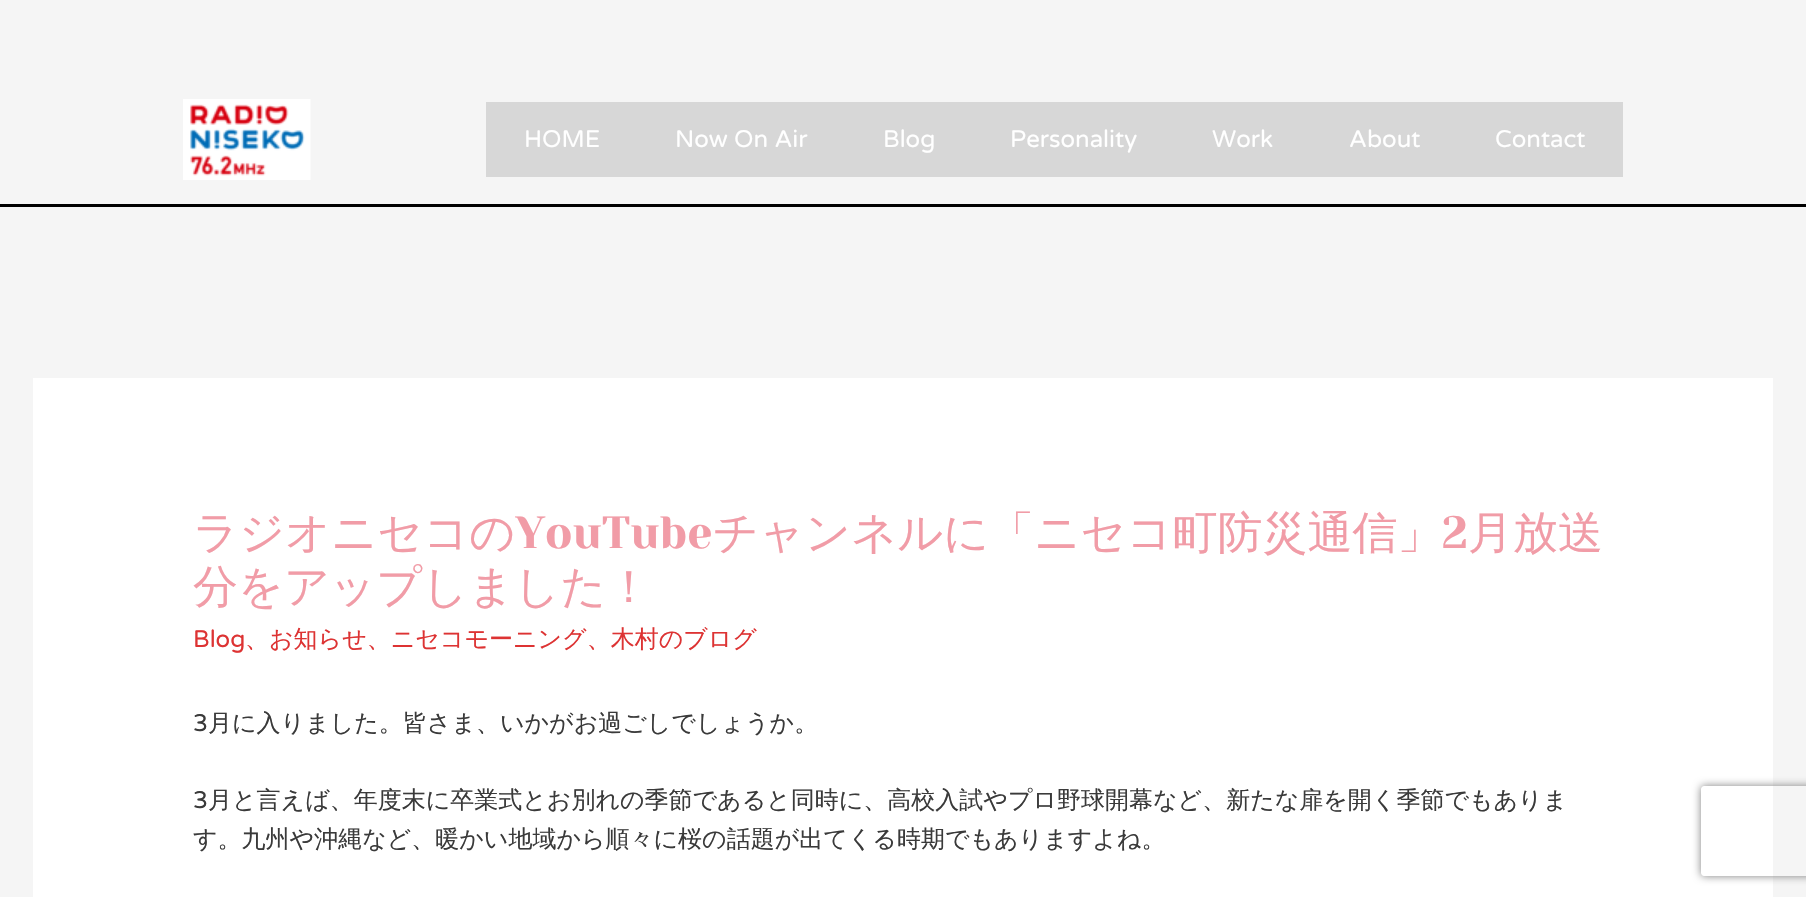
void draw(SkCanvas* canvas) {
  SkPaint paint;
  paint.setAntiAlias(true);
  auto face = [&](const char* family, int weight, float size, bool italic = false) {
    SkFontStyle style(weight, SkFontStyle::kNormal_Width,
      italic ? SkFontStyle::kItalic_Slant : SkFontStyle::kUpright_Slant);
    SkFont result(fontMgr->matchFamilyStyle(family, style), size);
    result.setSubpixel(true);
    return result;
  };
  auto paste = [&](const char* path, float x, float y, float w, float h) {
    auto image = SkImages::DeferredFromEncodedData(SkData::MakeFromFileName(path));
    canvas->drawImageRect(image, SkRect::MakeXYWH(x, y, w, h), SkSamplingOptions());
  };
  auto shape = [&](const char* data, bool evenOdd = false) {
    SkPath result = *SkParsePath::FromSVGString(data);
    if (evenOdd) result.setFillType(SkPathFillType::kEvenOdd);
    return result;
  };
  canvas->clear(0xfff5f5f5);
  paint.setColor(0xff000000);
  canvas->drawRect(SkRect::MakeXYWH(0, 204, 1806, 3), paint);
  paste("img/1.png", 183, 99, 128, 81);
  paint.setColor(0xffd7d7d7);
  canvas->drawRect(SkRect::MakeXYWH(486, 102, 1137, 75), paint);
  paint.setColor(0xffffffff);
  canvas->drawRect(SkRect::MakeXYWH(33, 378, 1740, 519), paint);
  canvas->save();
  canvas->clipPath(shape("M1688 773H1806V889H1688ZM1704 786H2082C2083.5 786 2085 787.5 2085 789V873C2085 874.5 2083.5 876 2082 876H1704C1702.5 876 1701 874.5 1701 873V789C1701 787.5 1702.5 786 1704 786Z", true), true);
  paint.setColor(0xff808080);
  paint.setMaskFilter(SkMaskFilter::MakeBlur(kNormal_SkBlurStyle, 4));
  canvas->drawRoundRect(SkRect::MakeXYWH(1701, 786, 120, 90), 3, 3, paint);
  paint.setMaskFilter(nullptr);
  canvas->restore();
  auto f0 = face("Varela Round", 400, 24);
  paint.setColor(0xffffffff);
  {
    const struct { const char* s; float x, y; } items[] = {
      {"HOME", 524, 147},
      {"Now On Air", 675, 147},
      {"Blog", 883, 147},
      {"Personality", 1010, 147},
      {"Work", 1212, 147},
      {"About", 1349, 147},
      {"Contact", 1495, 147},
    };
    for (auto [s, x, y] : items) {
      canvas->drawString(s, x, y, f0, paint);
    }
  }
  auto f1 = face("WenQuanYi Zen Hei", 500, 45);
  paint.setColor(0xfff19ca7);
  canvas->drawString("ラジオニセコの", 193, 548, f1, paint);
  auto f2 = face("Yeseva One", 400, 45);
  canvas->drawString("YouTube", 515, 548, f2, paint);
  canvas->drawString("チャンネルに「ニセコ町防災通信」", 713, 548, f1, paint);
  canvas->drawString("2", 1442, 548, f2, paint);
  canvas->drawString("月放送", 1468, 548, f1, paint);
  canvas->drawString("分をアップしました！", 193, 602, f1, paint);
  paint.setColor(0xffdd3333);
  canvas->drawString("Blog", 193, 647, f0, paint);
  auto f3 = face("WenQuanYi Zen Hei", 500, 24);
  canvas->drawString("、お知らせ、ニセコモーニング、木村のブログ", 245, 647, f3, paint);
  paint.setColor(0xff3a3a3a);
  canvas->drawString("3", 193, 731, f0, paint);
  canvas->drawString("月に入りました。皆さま、いかがお過ごしでしょうか。", 208, 731, f3, paint);
  canvas->drawString("3", 193, 808, f0, paint);
  canvas->drawString("月と言えば、年度末に卒業式とお別れの季節であると同時に、高校入試やプロ野球開幕など、新たな扉を開く季節でもありま", 208, 808, f3, paint);
  canvas->drawString("す。九州や沖縄など、暖かい地域から順々に桜の話題が出てくる時期でもありますよね。", 193, 847, f3, paint);
}
